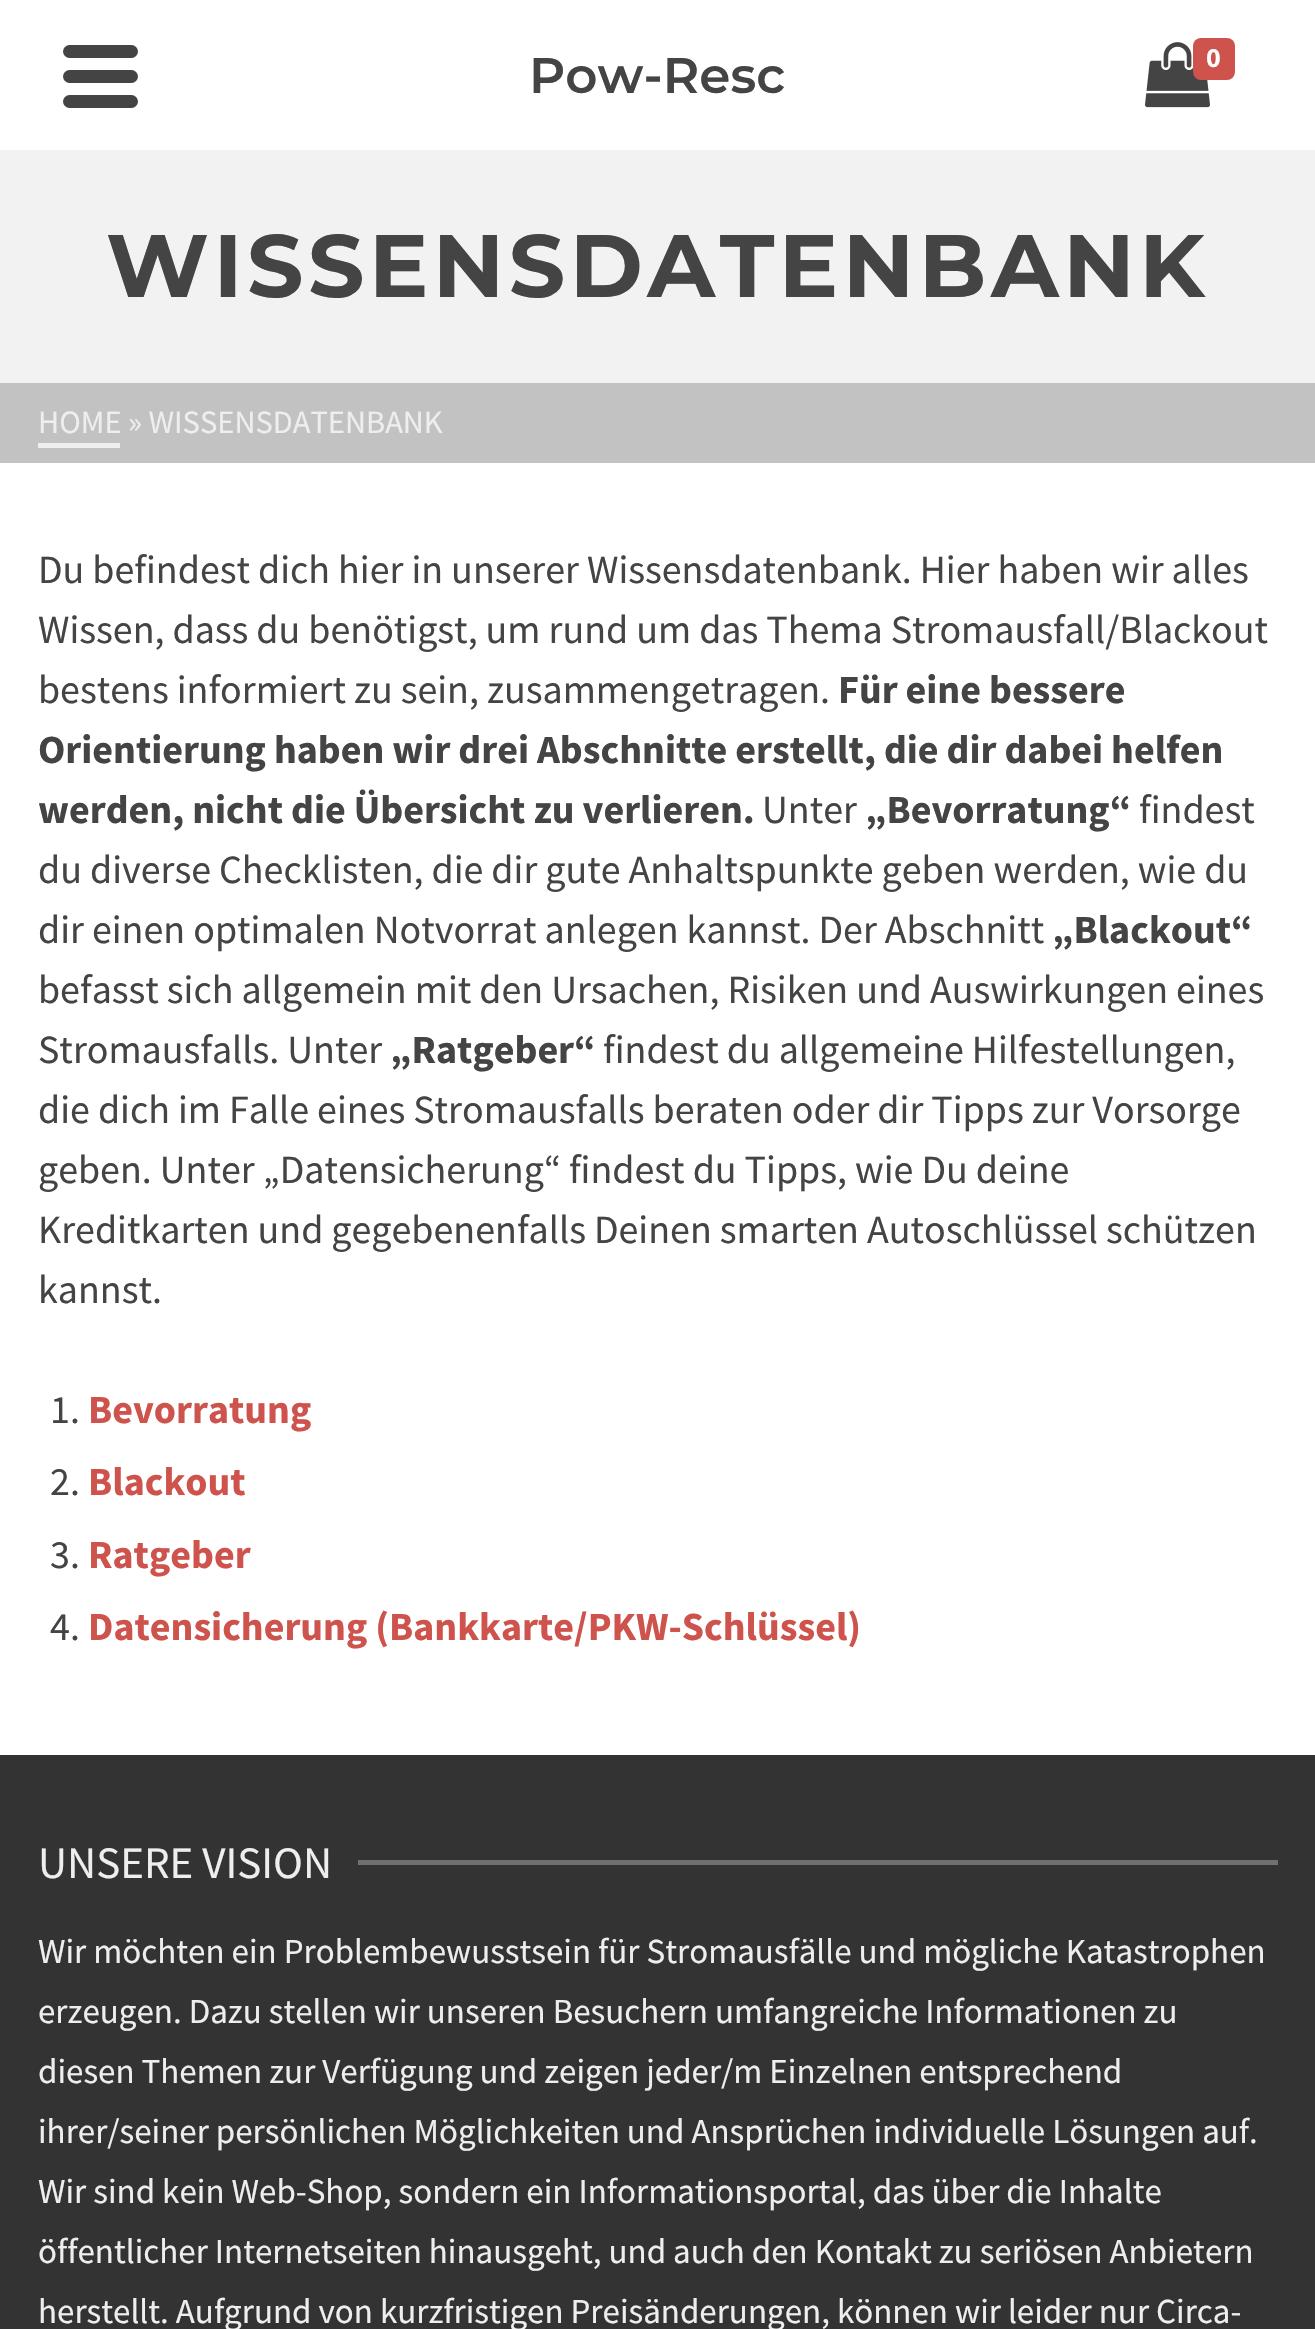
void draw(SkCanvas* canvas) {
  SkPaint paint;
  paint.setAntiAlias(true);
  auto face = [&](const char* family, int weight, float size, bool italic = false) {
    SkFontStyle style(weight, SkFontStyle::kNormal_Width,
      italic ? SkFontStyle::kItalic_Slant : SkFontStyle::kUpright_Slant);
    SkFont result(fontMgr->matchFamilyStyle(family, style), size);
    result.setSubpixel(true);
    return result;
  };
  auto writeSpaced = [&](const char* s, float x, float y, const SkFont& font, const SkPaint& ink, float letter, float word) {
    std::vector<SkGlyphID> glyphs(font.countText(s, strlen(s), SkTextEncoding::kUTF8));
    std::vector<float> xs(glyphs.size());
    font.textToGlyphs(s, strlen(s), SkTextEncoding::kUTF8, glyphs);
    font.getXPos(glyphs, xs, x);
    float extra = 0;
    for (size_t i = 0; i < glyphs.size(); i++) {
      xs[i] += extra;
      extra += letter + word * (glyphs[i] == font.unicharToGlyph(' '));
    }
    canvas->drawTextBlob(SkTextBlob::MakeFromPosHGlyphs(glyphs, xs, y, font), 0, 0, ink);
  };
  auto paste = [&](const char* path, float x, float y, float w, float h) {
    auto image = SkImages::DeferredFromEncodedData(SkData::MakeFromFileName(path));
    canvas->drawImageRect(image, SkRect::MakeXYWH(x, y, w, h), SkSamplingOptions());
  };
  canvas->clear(0xffffffff);
  paint.setColor(0xff444444);
  canvas->drawRoundRect(SkRect::MakeXYWH(63, 45, 75, 13), 6.5f, 6.5f, paint);
  canvas->drawRoundRect(SkRect::MakeXYWH(63, 70, 75, 13), 6.5f, 6.5f, paint);
  canvas->drawRoundRect(SkRect::MakeXYWH(63, 95, 75, 13), 6.5f, 6.5f, paint);
  paste("img/1.png", 1145, 42, 65, 66);
  paint.setColor(0xffce534d);
  canvas->drawRoundRect(SkRect::MakeXYWH(1193, 38, 42, 42), 8, 8, paint);
  {
    const struct { float x, y, w, h; SkColor color; } items[] = {
      {0, 150, 1315, 233, 0xfff2f2f2},
      {0, 383, 1315, 80, 0xffc2c2c2},
      {38, 443, 82, 5, 0xffeeeeee},
      {0, 1755, 1315, 574, 0xff333333},
      {358, 1860, 920, 5, 0xff707070},
    };
    for (auto [x, y, w, h, color] : items) {
      paint.setColor(color);
      canvas->drawRect(SkRect::MakeXYWH(x, y, w, h), paint);
    }
  }
  auto f0 = face("Montserrat", 600, 50);
  paint.setColor(0xff444444);
  canvas->drawString("Pow-Resc", 529, 93, f0, paint);
  auto f1 = face("Source Sans Pro", 700, 28);
  paint.setColor(0xffffffff);
  canvas->drawString("0", 1206, 67, f1, paint);
  auto f2 = face("Montserrat", 700, 88.5f);
  paint.setColor(0xff444444);
  writeSpaced("WISSENSDATENBANK", 106, 297, f2, paint, 4.5f, 0);
  auto f3 = face("Source Sans Pro", 400, 32.5f);
  paint.setColor(0xffeeeeee);
  canvas->drawString("HOME » WISSENSDATENBANK", 38, 433, f3, paint);
  auto f4 = face("Source Sans Pro", 400, 40);
  paint.setColor(0xff444444);
  {
    const struct { const char* s; float x, y; } items[] = {
      {"Du befindest dich hier in unserer Wissensdatenbank. Hier haben wir alles", 38, 583},
      {"Wissen, dass du benötigst, um rund um das Thema Stromausfall/Blackout", 38, 643},
      {"bestens informiert zu sein, zusammengetragen.", 38, 703},
    };
    for (auto [s, x, y] : items) {
      canvas->drawString(s, x, y, f4, paint);
    }
  }
  auto f5 = face("Source Sans Pro", 700, 40);
  {
    const struct { const char* s; float x, y; } items[] = {
      {"Für eine bessere", 838, 703},
      {"Orientierung haben wir drei Abschnitte erstellt, die dir dabei helfen", 38, 763},
      {"werden, nicht die Übersicht zu verlieren.", 38, 823},
    };
    for (auto [s, x, y] : items) {
      canvas->drawString(s, x, y, f5, paint);
    }
  }
  canvas->drawString("Unter", 762, 823, f4, paint);
  canvas->drawString("„Bevorratung“", 865, 823, f5, paint);
  {
    const struct { const char* s; float x, y; } items[] = {
      {"findest", 1139, 823},
      {"du diverse Checklisten, die dir gute Anhaltspunkte geben werden, wie du", 38, 883},
      {"dir einen optimalen Notvorrat anlegen kannst. Der Abschnitt", 38, 943},
    };
    for (auto [s, x, y] : items) {
      canvas->drawString(s, x, y, f4, paint);
    }
  }
  canvas->drawString("„Blackout“", 1052, 943, f5, paint);
  canvas->drawString("befasst sich allgemein mit den Ursachen, Risiken und Auswirkungen eines", 38, 1003, f4, paint);
  canvas->drawString("Stromausfalls. Unter", 38, 1063, f4, paint);
  canvas->drawString("„Ratgeber“", 390, 1063, f5, paint);
  {
    const struct { const char* s; float x, y; } items[] = {
      {"findest du allgemeine Hilfestellungen,", 603, 1063},
      {"die dich im Falle eines Stromausfalls beraten oder dir Tipps zur Vorsorge", 38, 1123},
      {"geben. Unter „Datensicherung“ findest du Tipps, wie Du deine", 38, 1183},
      {"Kreditkarten und gegebenenfalls Deinen smarten Autoschlüssel schützen", 38, 1243},
      {"kannst.", 38, 1303},
      {"1.", 50, 1423},
    };
    for (auto [s, x, y] : items) {
      canvas->drawString(s, x, y, f4, paint);
    }
  }
  paint.setColor(0xffce534d);
  canvas->drawString("Bevorratung", 88, 1423, f5, paint);
  paint.setColor(0xff444444);
  canvas->drawString("2.", 50, 1495, f4, paint);
  paint.setColor(0xffce534d);
  canvas->drawString("Blackout", 88, 1495, f5, paint);
  paint.setColor(0xff444444);
  canvas->drawString("3.", 50, 1568, f4, paint);
  paint.setColor(0xffce534d);
  canvas->drawString("Ratgeber", 88, 1568, f5, paint);
  paint.setColor(0xff444444);
  canvas->drawString("4.", 50, 1640, f4, paint);
  paint.setColor(0xffce534d);
  canvas->drawString("Datensicherung (Bankkarte/PKW-Schlüssel)", 88, 1640, f5, paint);
  auto f6 = face("Source Sans Pro", 400, 45);
  paint.setColor(0xffeeeeee);
  canvas->drawString("UNSERE VISION", 38, 1878, f6, paint);
  auto f7 = face("Source Sans Pro", 400, 35);
  {
    const struct { const char* s; float x, y; } items[] = {
      {"Wir möchten ein Problembewusstsein für Stromausfälle und mögliche Katastrophen", 38, 1963},
      {"erzeugen. Dazu stellen wir unseren Besuchern umfangreiche Informationen zu", 38, 2023},
      {"diesen Themen zur Verfügung und zeigen jeder/m Einzelnen entsprechend", 38, 2083},
      {"ihrer/seiner persönlichen Möglichkeiten und Ansprüchen individuelle Lösungen auf.", 38, 2143},
      {"Wir sind kein Web-Shop, sondern ein Informationsportal, das über die Inhalte", 38, 2203},
      {"öffentlicher Internetseiten hinausgeht, und auch den Kontakt zu seriösen Anbietern", 38, 2263},
      {"herstellt. Aufgrund von kurzfristigen Preisänderungen, können wir leider nur Circa-", 38, 2323},
    };
    for (auto [s, x, y] : items) {
      canvas->drawString(s, x, y, f7, paint);
    }
  }
}
